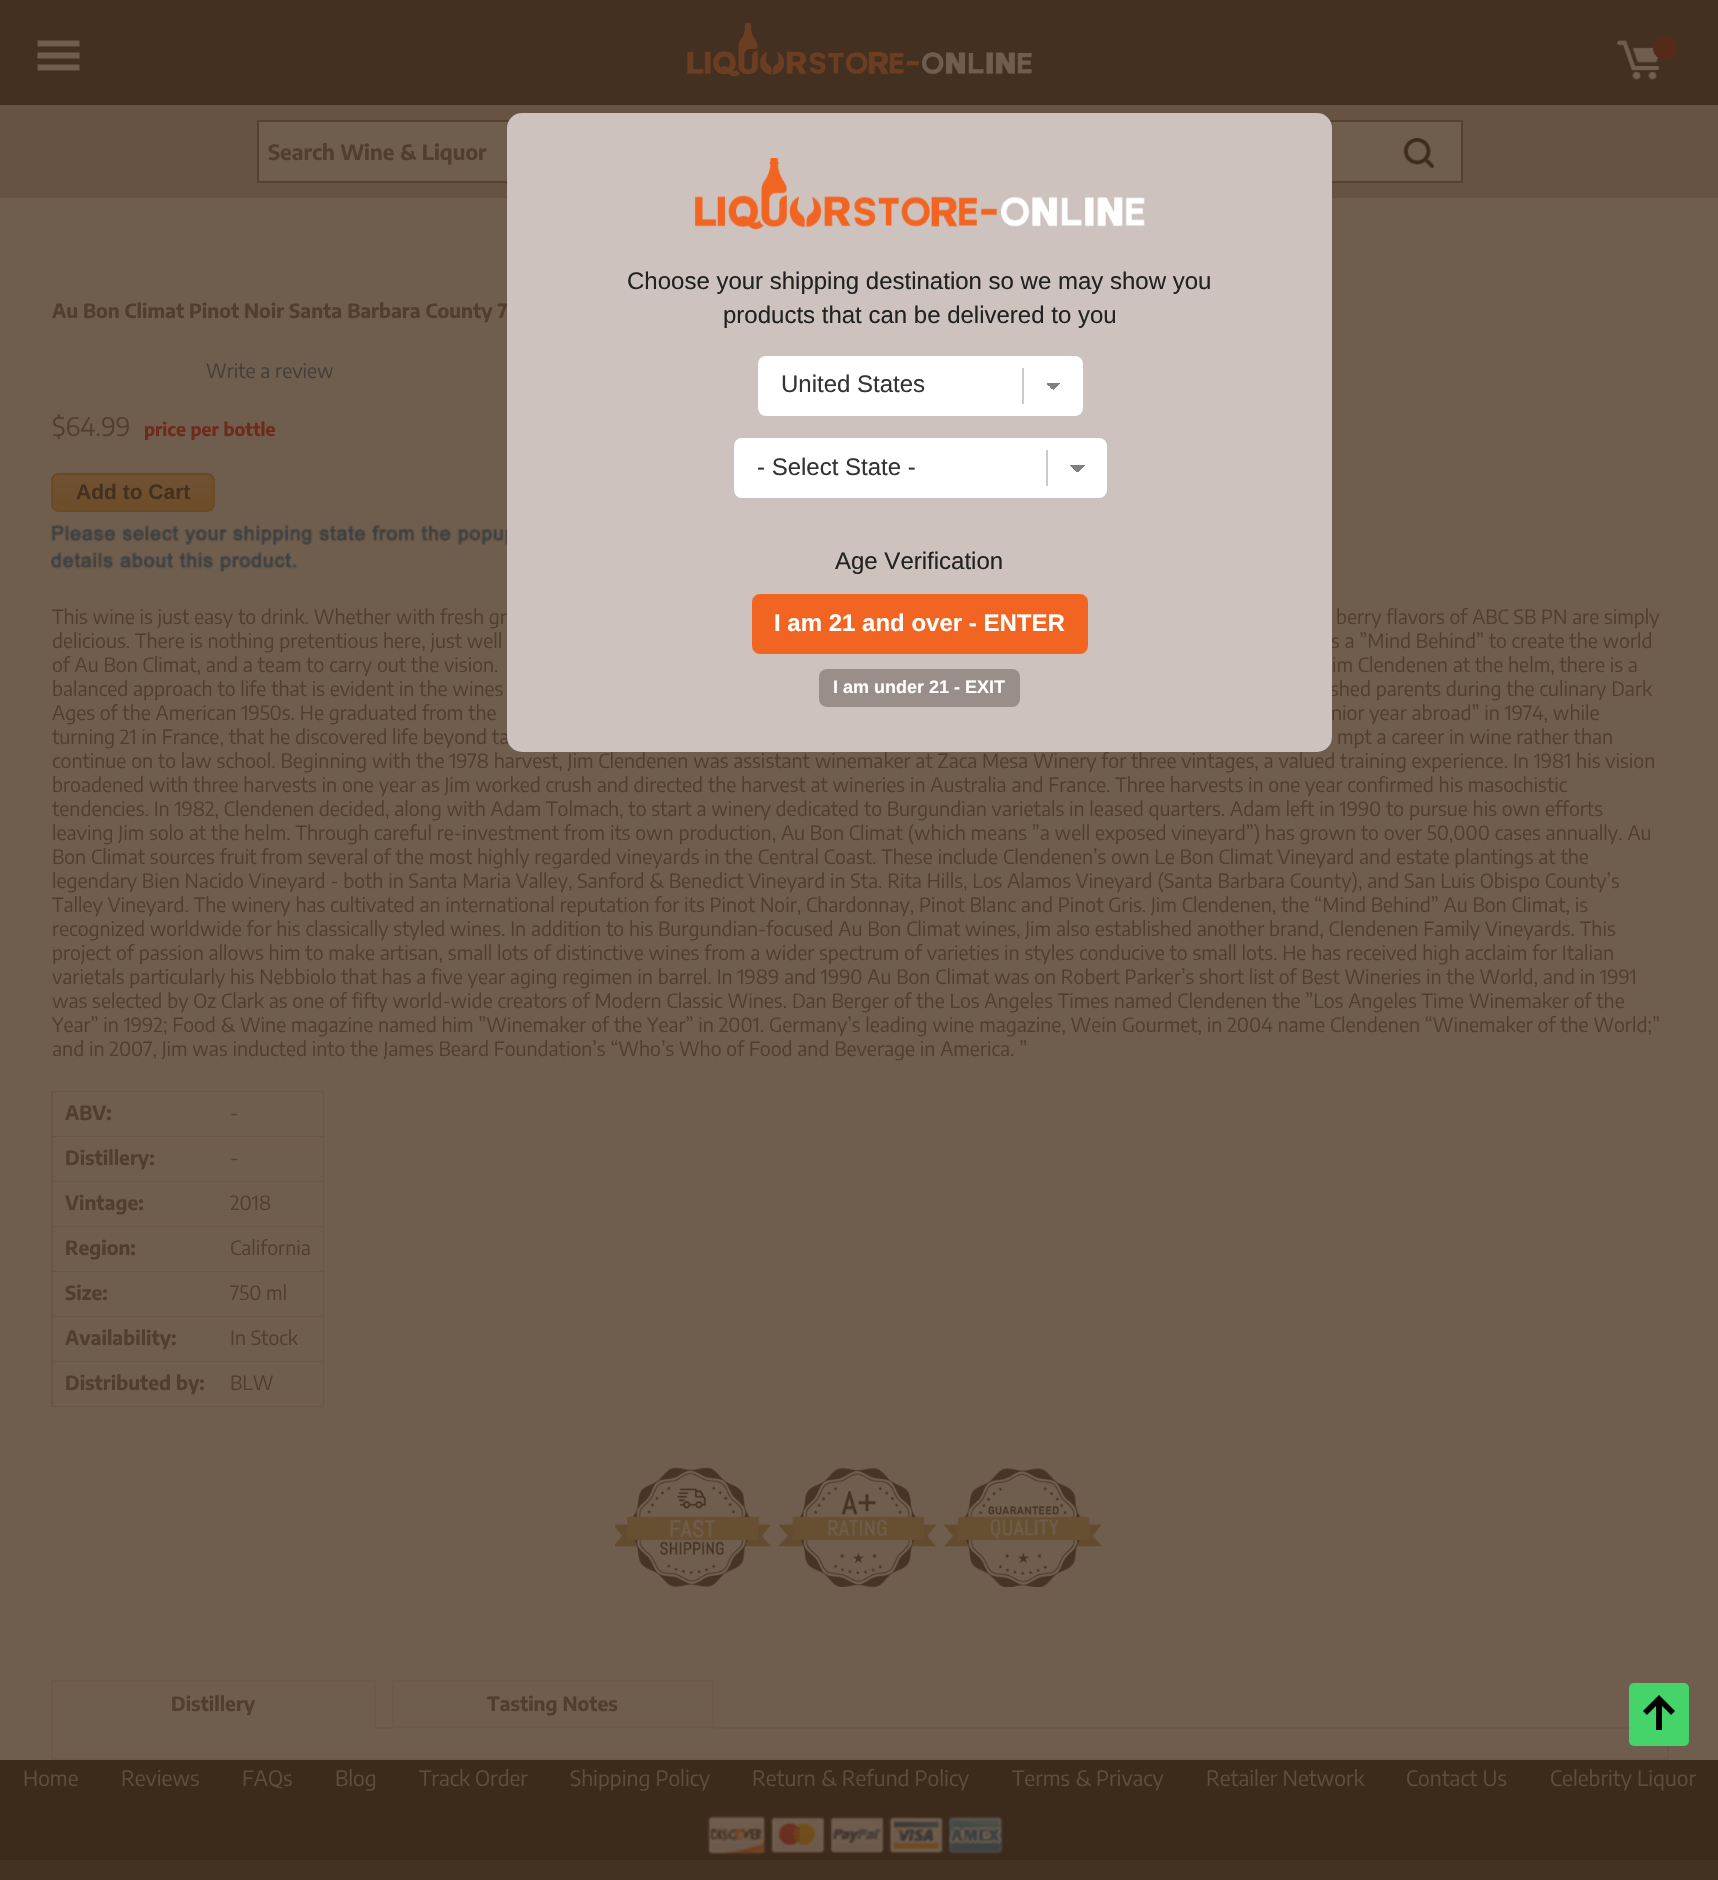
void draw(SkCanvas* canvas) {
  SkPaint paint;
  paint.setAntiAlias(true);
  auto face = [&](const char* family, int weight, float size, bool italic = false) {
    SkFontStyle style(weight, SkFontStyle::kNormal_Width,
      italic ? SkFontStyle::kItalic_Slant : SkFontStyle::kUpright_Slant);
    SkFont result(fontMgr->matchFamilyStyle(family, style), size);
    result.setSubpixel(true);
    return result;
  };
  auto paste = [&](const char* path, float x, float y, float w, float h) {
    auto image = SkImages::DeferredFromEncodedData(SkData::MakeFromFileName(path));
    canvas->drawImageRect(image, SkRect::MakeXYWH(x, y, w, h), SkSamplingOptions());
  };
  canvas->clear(0xff6f5d4d);
  paint.setColor(0xff433021);
  canvas->drawRect(SkRect::MakeXYWH(0, 0, 1718, 105), paint);
  paste("img/1.png", 37, 40, 43, 31);
  paste("img/2.png", 687, 23, 345, 54);
  paste("img/3.png", 1617, 40, 43, 40);
  paint.setColor(0xff562a1a);
  canvas->drawCircle(1665, 48, 12, paint);
  paint.setColor(0xff665344);
  canvas->drawRect(SkRect::MakeXYWH(0, 105, 1718, 93), paint);
  paint.setColor(0xff6f5d4d);
  canvas->drawRect(SkRect::MakeXYWH(258, 121, 1204, 61), paint);
  paint.setStroke(true);
  paint.setStrokeWidth(2);
  paint.setColor(0xff544132);
  canvas->drawRect(SkRect::MakeXYWH(258, 121, 1204, 61), paint);
  paste("img/4.png", 1403, 138, 31, 30);
  paste("img/6.png", 51, 472, 164, 38);
  paint.setColor(0xff6a4926);
  canvas->drawRoundRect(SkRect::MakeXYWH(52, 474, 162, 37), 7, 7, paint);
  paste("img/7.png", 51, 524, 456, 48);
  paint.setStroke(false);
  {
    const struct { float x, y, w, h; SkColor color; } items[] = {
      {51, 1091, 273, 316, 0xff695647},
      {53, 1092, 270, 44, 0xff6f5d4d},
      {53, 1137, 270, 44, 0xff6f5d4d},
      {53, 1182, 270, 44, 0xff6f5d4d},
      {53, 1227, 270, 44, 0xff6f5d4d},
      {53, 1272, 270, 44, 0xff6f5d4d},
      {53, 1317, 270, 44, 0xff6f5d4d},
      {53, 1362, 270, 44, 0xff6f5d4d},
    };
    for (auto [x, y, w, h, color] : items) {
      paint.setColor(color);
      canvas->drawRect(SkRect::MakeXYWH(x, y, w, h), paint);
    }
  }
  paste("img/8.png", 615, 1467, 487, 120);
  {
    const struct { float x, y, w, h; SkColor color; } items[] = {
      {51, 1680, 324, 2, 0xff6c5949},
      {374, 1680, 2, 48, 0xff6c5949},
      {51, 1680, 2, 48, 0xff6c5949},
    };
    for (auto [x, y, w, h, color] : items) {
      paint.setColor(color);
      canvas->drawRect(SkRect::MakeXYWH(x, y, w, h), paint);
    }
  }
  paint.setStroke(true);
  canvas->drawRect(SkRect::MakeXYWH(393, 1681, 320, 46), paint);
  paint.setStroke(false);
  {
    const struct { float x, y, w, h; SkColor color; } items[] = {
      {375, 1727, 17, 2, 0xff6c5949},
      {714, 1727, 915, 2, 0xff6c5949},
      {1667, 1746, 2, 14, 0xff6c5949},
      {51, 1758, 1617, 2, 0xff6c5949},
      {51, 1728, 2, 32, 0xff6c5949},
    };
    for (auto [x, y, w, h, color] : items) {
      paint.setColor(color);
      canvas->drawRect(SkRect::MakeXYWH(x, y, w, h), paint);
    }
  }
  paint.setColor(0xff44d46a);
  canvas->drawRoundRect(SkRect::MakeXYWH(1629, 1683, 60, 63), 5, 5, paint);
  paste("img/9.png", 1643, 1694, 32, 36);
  paint.setColor(0xff3c2a1a);
  canvas->drawRect(SkRect::MakeXYWH(0, 1760, 1718, 100), paint);
  paste("img/10.png", 706, 1815, 298, 41);
  paint.setColor(0xff433122);
  canvas->drawRect(SkRect::MakeXYWH(0, 1860, 1718, 20), paint);
  auto f0 = face("Encode Sans Condensed", 700, 21);
  paint.setColor(0xff513e2f);
  canvas->drawString("Search Wine & Liquor", 268, 160, f0, paint);
  auto f1 = face("Encode Sans Condensed", 700, 19.5f);
  canvas->drawString("Au Bon Climat Pinot Noir Santa Barbara County 7", 52, 318, f1, paint);
  auto f2 = face("Encode Sans Condensed", 400, 19.5f);
  paint.setColor(0xff463e39);
  canvas->drawString("Write a review", 206, 378, f2, paint);
  auto f3 = face("Encode Sans Condensed", 400, 25.5f);
  paint.setColor(0xff513e2f);
  canvas->drawString("$64.99", 52, 436, f3, paint);
  auto f4 = face("Encode Sans Condensed", 700, 18);
  paint.setColor(0xff6f2a1a);
  canvas->drawString("price per bottle", 144, 436, f4, paint);
  auto f5 = face("Liberation Sans", 700, 21);
  paint.setColor(0xff433021);
  canvas->drawString("Add to Cart", 76, 499, f5, paint);
  paint.setColor(0xff513e2f);
  {
    const struct { const char* s; float x, y; } items[] = {
      {"This wine is just easy to drink. Whether with fresh gr", 52, 624},
      {"berry flavors of ABC SB PN are simply", 1336, 624},
      {"delicious. There is nothing pretentious here, just well", 52, 648},
      {"s a ”Mind Behind” to create the world", 1331, 648},
      {"of Au Bon Climat, and a team to carry out the vision.", 52, 672},
      {"im Clendenen at the helm, there is a", 1332, 672},
      {"balanced approach to life that is evident in the wines", 52, 696},
      {"shed parents during the culinary Dark", 1330, 696},
      {"Ages of the American 1950s. He graduated from the", 52, 720},
      {"nior year abroad” in 1974, while", 1331, 720},
      {"turning 21 in France, that he discovered life beyond ta", 52, 744},
    };
    for (auto [s, x, y] : items) {
      canvas->drawString(s, x, y, f2, paint);
    }
  }
  paint.setColor(0xffcdc2bd);
  canvas->drawRoundRect(SkRect::MakeXYWH(507, 113, 825, 639), 15, 15, paint);
  paint.setColor(0xff998e89);
  canvas->drawRoundRect(SkRect::MakeXYWH(819, 669, 201, 38), 8, 8, paint);
  auto f6 = face("Liberation Sans", 700, 18);
  paint.setColor(0xffffffff);
  canvas->drawString("I am under 21 - EXIT", 833, 693, f6, paint);
  paint.setColor(0xfff26422);
  canvas->drawRoundRect(SkRect::MakeXYWH(752, 594, 336, 60), 8, 8, paint);
  auto f7 = face("Liberation Sans", 700, 24);
  paint.setColor(0xffffffff);
  canvas->drawString("I am 21 and over - ENTER", 774, 631, f7, paint);
  auto f8 = face("Liberation Sans", 400, 24);
  paint.setColor(0xff222222);
  canvas->drawString("Age Verification", 835, 569, f8, paint);
  paint.setColor(0xffffffff);
  canvas->drawRoundRect(SkRect::MakeXYWH(734, 438, 373, 60), 8, 8, paint);
  canvas->save();
  canvas->clipRect(SkRect::MakeXYWH(758, 450, 265, 36));
  paint.setColor(0xff333333);
  canvas->drawString("- Select State -", 757, 475, f8, paint);
  canvas->restore();
  {
    const SkColor colors[] = {0xffffffff, 0xff808080};
    const float stops[] = {0.5f, 0.5f};
    const SkPoint ends[] = {{1070, 473}, {1077, 465}};
    paint.setShader(SkGradientShader::MakeLinear(ends, colors, stops, 2, SkTileMode::kClamp));
    paint.setAlpha(255);
  }
  canvas->drawRect(SkRect::MakeXYWH(1070, 465, 7, 8), paint);
  {
    const SkColor colors[] = {0xff808080, 0xffffffff};
    const float stops[] = {0.5f, 0.5f};
    const SkPoint ends[] = {{1077, 465}, {1085, 473}};
    paint.setShader(SkGradientShader::MakeLinear(ends, colors, stops, 2, SkTileMode::kClamp));
    paint.setAlpha(255);
  }
  canvas->drawRect(SkRect::MakeXYWH(1077, 465, 8, 7), paint);
  paint.setShader(nullptr);
  paint.setColor(0xffcccccc);
  canvas->drawRect(SkRect::MakeXYWH(1046, 450, 2, 36), paint);
  paint.setColor(0xffffffff);
  canvas->drawRoundRect(SkRect::MakeXYWH(758, 356, 325, 60), 8, 8, paint);
  paint.setColor(0xff333333);
  canvas->drawString("United States", 781, 392, f8, paint);
  {
    const SkColor colors[] = {0xffffffff, 0xff808080};
    const float stops[] = {0.5f, 0.5f};
    const SkPoint ends[] = {{1046, 390}, {1053, 383}};
    paint.setShader(SkGradientShader::MakeLinear(ends, colors, stops, 2, SkTileMode::kClamp));
    paint.setAlpha(255);
  }
  canvas->drawRect(SkRect::MakeXYWH(1046, 383, 7, 6), paint);
  {
    const SkColor colors[] = {0xff808080, 0xffffffff};
    const float stops[] = {0.5f, 0.5f};
    const SkPoint ends[] = {{1053, 383}, {1061, 390}};
    paint.setShader(SkGradientShader::MakeLinear(ends, colors, stops, 2, SkTileMode::kClamp));
    paint.setAlpha(255);
  }
  canvas->drawRect(SkRect::MakeXYWH(1053, 383, 8, 7), paint);
  paint.setShader(nullptr);
  paint.setColor(0xffcccccc);
  canvas->drawRect(SkRect::MakeXYWH(1022, 368, 2, 36), paint);
  paint.setColor(0xff222222);
  canvas->drawString("products that can be delivered to you", 723, 323, f8, paint);
  canvas->drawString("Choose your shipping destination so we may show you", 627, 289, f8, paint);
  paste("img/5.png", 695, 158, 450, 72);
  paint.setColor(0xff513e2f);
  {
    const struct { const char* s; float x, y; } items[] = {
      {"mpt a career in wine rather than", 1337, 744},
      {"continue on to law school. Beginning with the 1978 harvest, Jim Clendenen was assistant winemaker at Zaca Mesa Winery for three vintages, a valued training experience. In 1981 his vision", 52, 768},
      {"broadened with three harvests in one year as Jim worked crush and directed the harvest at wineries in Australia and France. Three harvests in one year confirmed his masochistic", 52, 792},
      {"tendencies. In 1982, Clendenen decided, along with Adam Tolmach, to start a winery dedicated to Burgundian varietals in leased quarters. Adam left in 1990 to pursue his own efforts", 52, 816},
      {"leaving Jim solo at the helm. Through careful re-investment from its own production, Au Bon Climat (which means ”a well exposed vineyard”) has grown to over 50,000 cases annually. Au", 52, 840},
      {"Bon Climat sources fruit from several of the most highly regarded vineyards in the Central Coast. These include Clendenen’s own Le Bon Climat Vineyard and estate plantings at the", 52, 864},
      {"legendary Bien Nacido Vineyard - both in Santa Maria Valley, Sanford & Benedict Vineyard in Sta. Rita Hills, Los Alamos Vineyard (Santa Barbara County), and San Luis Obispo County’s", 52, 888},
      {"Talley Vineyard. The winery has cultivated an international reputation for its Pinot Noir, Chardonnay, Pinot Blanc and Pinot Gris. Jim Clendenen, the “Mind Behind” Au Bon Climat, is", 52, 912},
      {"recognized worldwide for his classically styled wines. In addition to his Burgundian-focused Au Bon Climat wines, Jim also established another brand, Clendenen Family Vineyards. This", 52, 936},
      {"project of passion allows him to make artisan, small lots of distinctive wines from a wider spectrum of varieties in styles conducive to small lots. He has received high acclaim for Italian", 52, 960},
      {"varietals particularly his Nebbiolo that has a five year aging regimen in barrel. In 1989 and 1990 Au Bon Climat was on Robert Parker’s short list of Best Wineries in the World, and in 1991", 52, 984},
      {"was selected by Oz Clark as one of fifty world-wide creators of Modern Classic Wines. Dan Berger of the Los Angeles Times named Clendenen the ”Los Angeles Time Winemaker of the", 52, 1008},
      {"Year” in 1992; Food & Wine magazine named him ”Winemaker of the Year” in 2001. Germany’s leading wine magazine, Wein Gourmet, in 2004 name Clendenen “Winemaker of the World;”", 52, 1032},
      {"and in 2007, Jim was inducted into the James Beard Foundation’s “Who’s Who of Food and Beverage in America. ”", 52, 1056},
    };
    for (auto [s, x, y] : items) {
      canvas->drawString(s, x, y, f2, paint);
    }
  }
  canvas->drawString("ABV:", 65, 1120, f1, paint);
  canvas->drawString("-", 230, 1120, f2, paint);
  canvas->drawString("Distillery:", 65, 1165, f1, paint);
  canvas->drawString("-", 230, 1165, f2, paint);
  canvas->drawString("Vintage:", 65, 1210, f1, paint);
  canvas->drawString("2018", 230, 1210, f2, paint);
  canvas->drawString("Region:", 65, 1255, f1, paint);
  canvas->drawString("California", 230, 1255, f2, paint);
  canvas->drawString("Size:", 65, 1300, f1, paint);
  canvas->drawString("750 ml", 230, 1300, f2, paint);
  canvas->drawString("Availability:", 65, 1345, f1, paint);
  canvas->drawString("In Stock", 230, 1345, f2, paint);
  canvas->drawString("Distributed by:", 65, 1390, f1, paint);
  canvas->drawString("BLW", 230, 1390, f2, paint);
  canvas->drawString("Distillery", 171, 1711, f1, paint);
  canvas->drawString("Tasting Notes", 487, 1711, f1, paint);
  auto f9 = face("Encode Sans Condensed", 400, 21);
  paint.setColor(0xff5e4c3c);
  {
    const struct { const char* s; float x, y; } items[] = {
      {"Home", 23, 1786},
      {"Reviews", 121, 1786},
      {"FAQs", 242, 1786},
      {"Blog", 335, 1786},
      {"Track Order", 419, 1786},
      {"Shipping Policy", 570, 1786},
      {"Return & Refund Policy", 752, 1786},
      {"Terms & Privacy", 1012, 1786},
      {"Retailer Network", 1206, 1786},
      {"Contact Us", 1406, 1786},
      {"Celebrity Liquor", 1550, 1786},
    };
    for (auto [s, x, y] : items) {
      canvas->drawString(s, x, y, f9, paint);
    }
  }
}
